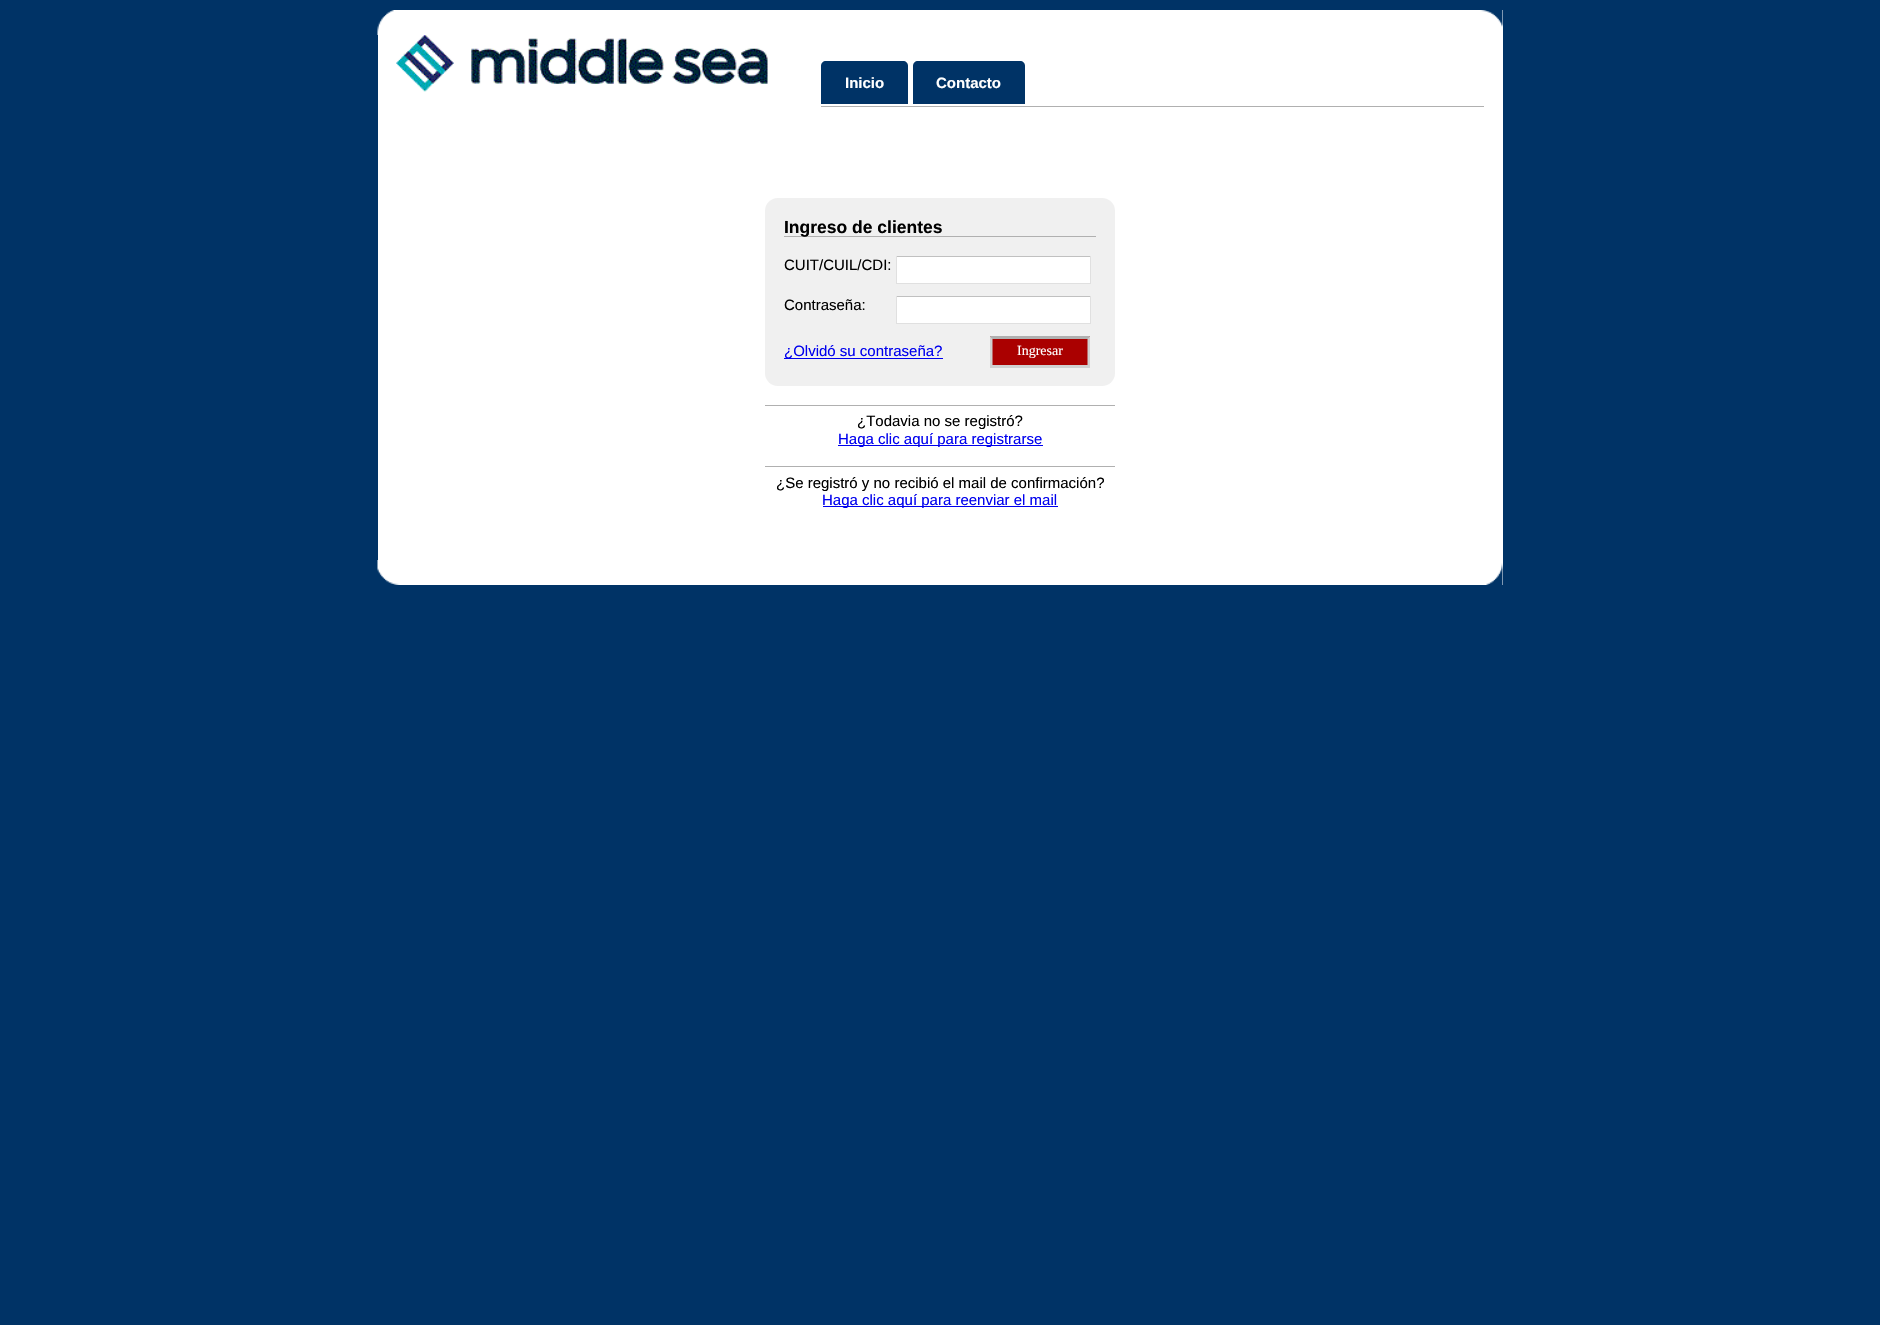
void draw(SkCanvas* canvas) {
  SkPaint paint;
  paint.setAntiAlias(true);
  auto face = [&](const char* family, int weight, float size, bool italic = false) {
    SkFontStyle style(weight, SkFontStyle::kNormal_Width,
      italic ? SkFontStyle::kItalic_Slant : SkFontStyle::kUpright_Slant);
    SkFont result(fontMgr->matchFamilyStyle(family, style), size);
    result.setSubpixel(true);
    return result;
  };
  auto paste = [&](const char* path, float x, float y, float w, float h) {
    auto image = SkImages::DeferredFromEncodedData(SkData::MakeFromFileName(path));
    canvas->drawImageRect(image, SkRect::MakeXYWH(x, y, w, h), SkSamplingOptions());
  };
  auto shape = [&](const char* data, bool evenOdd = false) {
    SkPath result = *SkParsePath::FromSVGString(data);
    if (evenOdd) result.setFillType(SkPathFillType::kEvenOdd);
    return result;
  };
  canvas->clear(0xff003366);
  paint.setColor(0xffffffff);
  canvas->drawRect(SkRect::MakeXYWH(378, 10, 1125, 550), paint);
  paste("img/1.png", 377, 10, 17, 25);
  paste("img/2.png", 1480, 10, 23, 17);
  paste("img/3.png", 396, 35, 372, 57);
  paint.setColor(0xffb0b0b0);
  canvas->drawRect(SkRect::MakeXYWH(821, 106, 663, 1), paint);
  paint.setColor(0xff003366);
  canvas->drawPath(shape("M826 61H903C906 61 908 63 908 66V104H821V66C821 63 823 61 826 61Z"), paint);
  canvas->drawPath(shape("M918 61H1020C1023 61 1025 63 1025 66V104H913V66C913 63 915 61 918 61Z"), paint);
  paint.setColor(0xfff0f0f0);
  canvas->drawRoundRect(SkRect::MakeXYWH(765, 198, 350, 188), 13, 13, paint);
  {
    const struct { float x, y, w, h; SkColor color; } items[] = {
      {784, 236, 312, 1, 0xffb0b0b0},
      {897, 257, 193, 26, 0xffffffff},
      {896, 256, 195, 1, 0xffc0c0c0},
      {1090, 256, 1, 28, 0xffe0e0e0},
      {896, 283, 195, 1, 0xffe0e0e0},
      {896, 256, 1, 28, 0xffe0e0e0},
      {897, 297, 193, 26, 0xffffffff},
      {896, 296, 195, 1, 0xffc0c0c0},
      {1090, 296, 1, 28, 0xffe0e0e0},
      {896, 323, 195, 1, 0xffe0e0e0},
      {896, 296, 1, 28, 0xffe0e0e0},
      {784, 358, 159, 1, 0xff0000ee},
      {990, 336, 100, 29, 0xffaa0000},
    };
    for (auto [x, y, w, h, color] : items) {
      paint.setColor(color);
      canvas->drawRect(SkRect::MakeXYWH(x, y, w, h), paint);
    }
  }
  paint.setColor(0xffb0b0b0);
  canvas->drawPath(shape("M990 336H1090L1088 339H992Z"), paint);
  paint.setColor(0xffd0d0d0);
  canvas->drawPath(shape("M1090 336V367.5L1087.5 365V339Z"), paint);
  canvas->drawRect(SkRect::MakeXYWH(990, 365, 100, 3), paint);
  canvas->drawPath(shape("M990 367.5V336L992.5 339V365Z"), paint);
  {
    const struct { float x, y, w, h; SkColor color; } items[] = {
      {765, 405, 350, 1, 0xffb0b0b0},
      {838, 445, 205, 1, 0xff0000ee},
      {765, 466, 350, 1, 0xffb0b0b0},
      {823, 506, 235, 1, 0xff0000ee},
      {400, 560, 1103, 25, 0xffffffff},
    };
    for (auto [x, y, w, h, color] : items) {
      paint.setColor(color);
      canvas->drawRect(SkRect::MakeXYWH(x, y, w, h), paint);
    }
  }
  paste("img/4.png", 377, 560, 23, 25);
  paste("img/5.png", 1486, 563, 17, 22);
  auto f0 = face("Liberation Sans", 700, 15);
  canvas->drawString("Inicio", 845, 88, f0, paint);
  canvas->drawString("Contacto", 936, 88, f0, paint);
  auto f1 = face("Liberation Sans", 700, 17.5f);
  paint.setColor(0xff000000);
  canvas->drawString("Ingreso de clientes", 784, 233, f1, paint);
  auto f2 = face("Liberation Sans", 400, 15);
  canvas->drawString("CUIT/CUIL/CDI:", 784, 270, f2, paint);
  canvas->drawString("Contraseña:", 784, 310, f2, paint);
  paint.setColor(0xff0000ee);
  canvas->drawString("¿Olvidó su contraseña?", 784, 356, f2, paint);
  auto f3 = face("Liberation Serif", 400, 14);
  paint.setColor(0xffffffff);
  canvas->drawString("Ingresar", 1017, 355, f3, paint);
  paint.setColor(0xff000000);
  canvas->drawString("¿Todavia no se registró?", 857, 426, f2, paint);
  paint.setColor(0xff0000ee);
  canvas->drawString("Haga clic aquí para registrarse", 838, 444, f2, paint);
  paint.setColor(0xff000000);
  canvas->drawString("¿Se registró y no recibió el mail de confirmación?", 776, 488, f2, paint);
  paint.setColor(0xff0000ee);
  canvas->drawString("Haga clic aquí para reenviar el mail", 822, 505, f2, paint);
}
